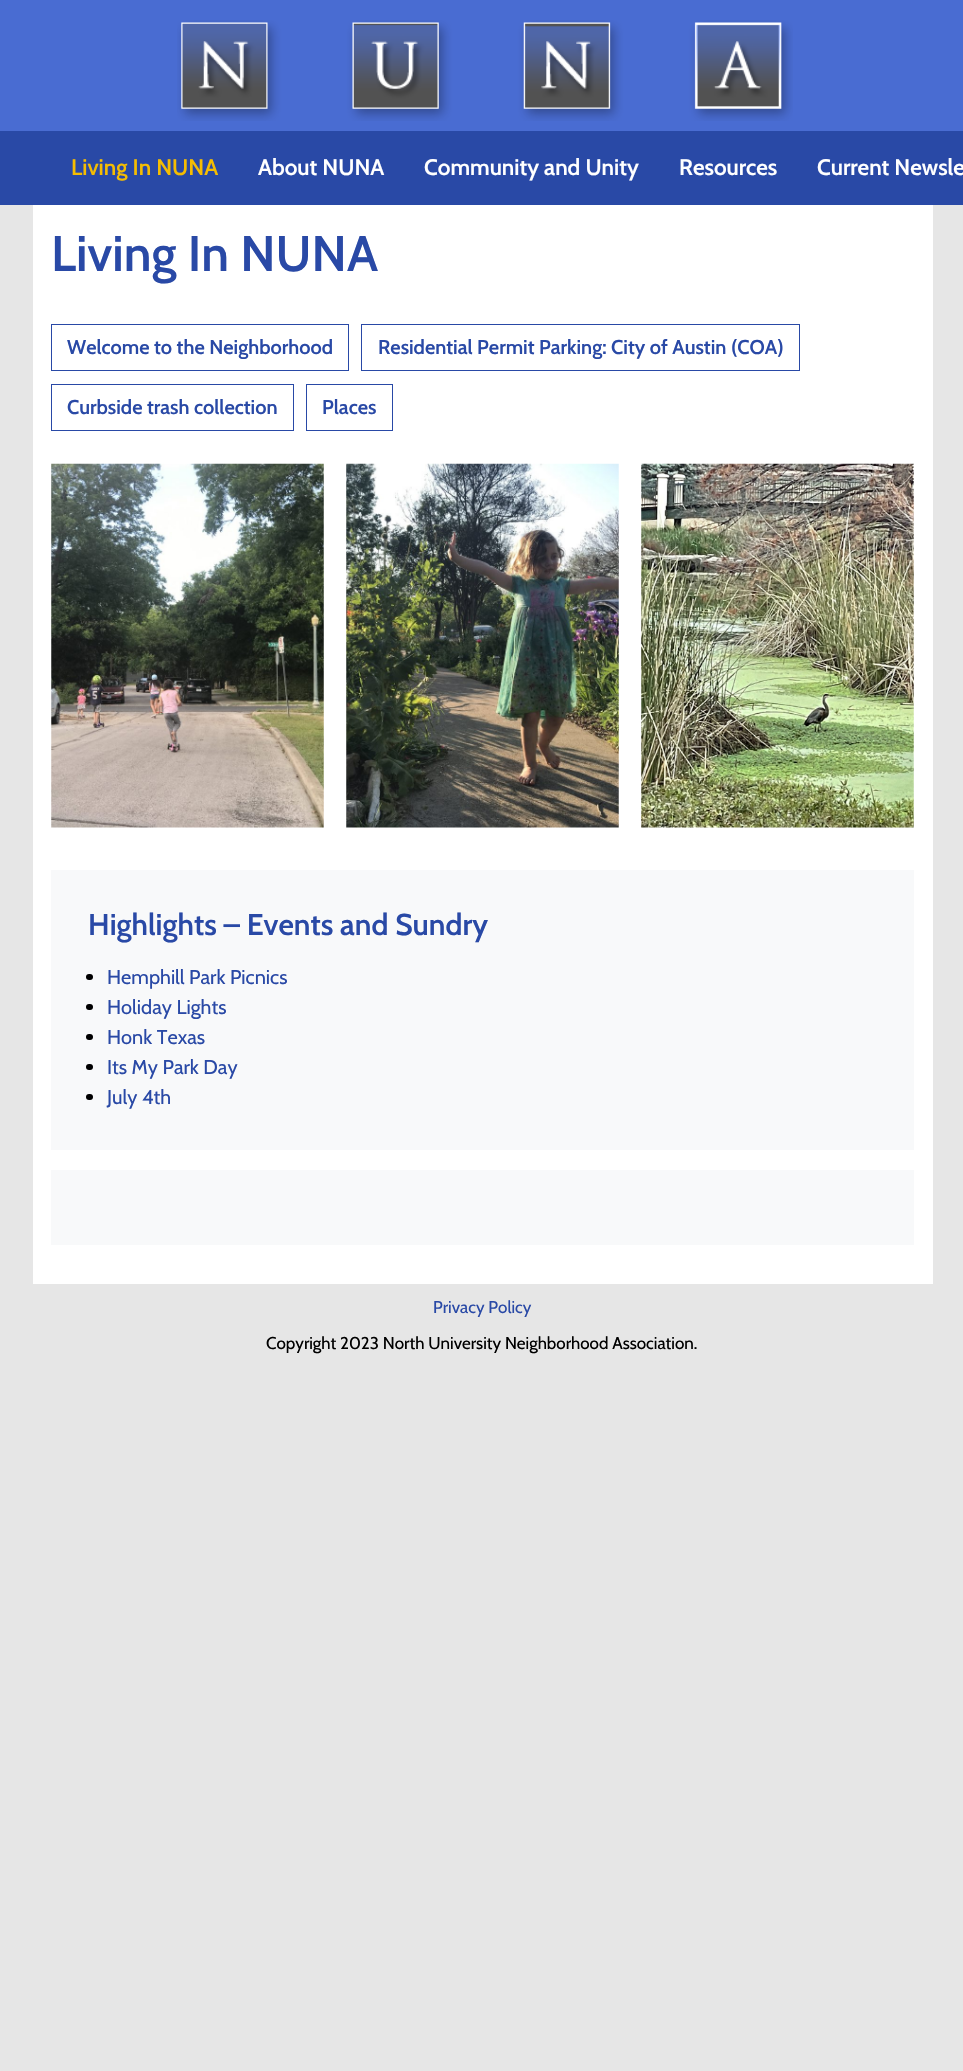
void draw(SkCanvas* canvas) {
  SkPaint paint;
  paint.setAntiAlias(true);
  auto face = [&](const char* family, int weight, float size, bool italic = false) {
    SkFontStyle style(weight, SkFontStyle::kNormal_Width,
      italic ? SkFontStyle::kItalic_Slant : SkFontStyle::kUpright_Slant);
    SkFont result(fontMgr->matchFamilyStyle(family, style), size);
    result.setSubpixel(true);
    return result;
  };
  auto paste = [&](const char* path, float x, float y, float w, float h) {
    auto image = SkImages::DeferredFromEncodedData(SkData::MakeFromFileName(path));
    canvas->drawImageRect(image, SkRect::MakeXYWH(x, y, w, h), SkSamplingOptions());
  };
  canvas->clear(0xffe6e6e6);
  paint.setColor(0xff496cd2);
  canvas->drawRect(SkRect::MakeXYWH(0, 0, 963, 131), paint);
  paste("img/1.png", 177, 20, 616, 101);
  paint.setColor(0xff2949a6);
  canvas->drawRect(SkRect::MakeXYWH(0, 131, 963, 74), paint);
  paint.setColor(0xffffffff);
  canvas->drawRect(SkRect::MakeXYWH(33, 205, 900, 1079), paint);
  paint.setStroke(true);
  paint.setStrokeWidth(1);
  paint.setColor(0xff2949a6);
  canvas->drawRect(SkRect::MakeXYWH(51.5f, 324.5f, 297, 46), paint);
  canvas->drawRect(SkRect::MakeXYWH(361.5f, 324.5f, 438, 46), paint);
  canvas->drawRect(SkRect::MakeXYWH(51.5f, 384.5f, 242, 46), paint);
  canvas->drawRect(SkRect::MakeXYWH(306.5f, 384.5f, 86, 46), paint);
  paste("img/2.png", 51, 463, 273, 365);
  paste("img/3.png", 346, 463, 273, 365);
  paste("img/4.png", 641, 463, 273, 365);
  paint.setStroke(false);
  paint.setColor(0xfff8f9fa);
  canvas->drawRect(SkRect::MakeXYWH(51, 870, 863, 280), paint);
  paint.setColor(0xff000000);
  canvas->drawRoundRect(SkRect::MakeXYWH(86, 974, 7, 6), 3, 3, paint);
  canvas->drawRoundRect(SkRect::MakeXYWH(86, 1004, 7, 6), 3, 3, paint);
  canvas->drawRoundRect(SkRect::MakeXYWH(86, 1034, 7, 6), 3, 3, paint);
  canvas->drawRoundRect(SkRect::MakeXYWH(86, 1064, 7, 6), 3, 3, paint);
  canvas->drawRoundRect(SkRect::MakeXYWH(86, 1094, 7, 6), 3, 3, paint);
  paint.setColor(0xfff8f9fa);
  canvas->drawRect(SkRect::MakeXYWH(51, 1170, 863, 75), paint);
  auto f0 = face("Cabin", 600, 22.5f);
  paint.setColor(0xfff5bd02);
  canvas->drawString("Living In NUNA", 71, 175, f0, paint);
  paint.setColor(0xffffffff);
  {
    const struct { const char* s; float x, y; } items[] = {
      {"About NUNA", 258, 175},
      {"Community and Unity", 424, 175},
      {"Resources", 679, 175},
      {"Current Newsle", 817, 175},
    };
    for (auto [s, x, y] : items) {
      canvas->drawString(s, x, y, f0, paint);
    }
  }
  auto f1 = face("Cabin", 600, 50);
  paint.setColor(0xff2949a6);
  canvas->drawString("Living In NUNA", 51, 271, f1, paint);
  auto f2 = face("Cabin", 600, 20);
  {
    const struct { const char* s; float x, y; } items[] = {
      {"Welcome to the Neighborhood", 67, 354},
      {"Residential Permit Parking: City of Austin (COA)", 378, 354},
      {"Curbside trash collection", 67, 414},
      {"Places", 322, 414},
    };
    for (auto [s, x, y] : items) {
      canvas->drawString(s, x, y, f2, paint);
    }
  }
  auto f3 = face("Cabin", 600, 30);
  canvas->drawString("Highlights – Events and Sundry", 88, 935, f3, paint);
  auto f4 = face("Cabin", 400, 20);
  {
    const struct { const char* s; float x, y; } items[] = {
      {"Hemphill Park Picnics", 107, 984},
      {"Holiday Lights", 107, 1014},
      {"Honk Texas", 107, 1044},
      {"Its My Park Day", 107, 1074},
      {"July 4th", 107, 1104},
    };
    for (auto [s, x, y] : items) {
      canvas->drawString(s, x, y, f4, paint);
    }
  }
  auto f5 = face("Cabin", 400, 17);
  canvas->drawString("Privacy Policy", 433, 1313, f5, paint);
  paint.setColor(0xff000000);
  canvas->drawString("Copyright 2023 North University Neighborhood Association.", 266, 1349, f5, paint);
}
